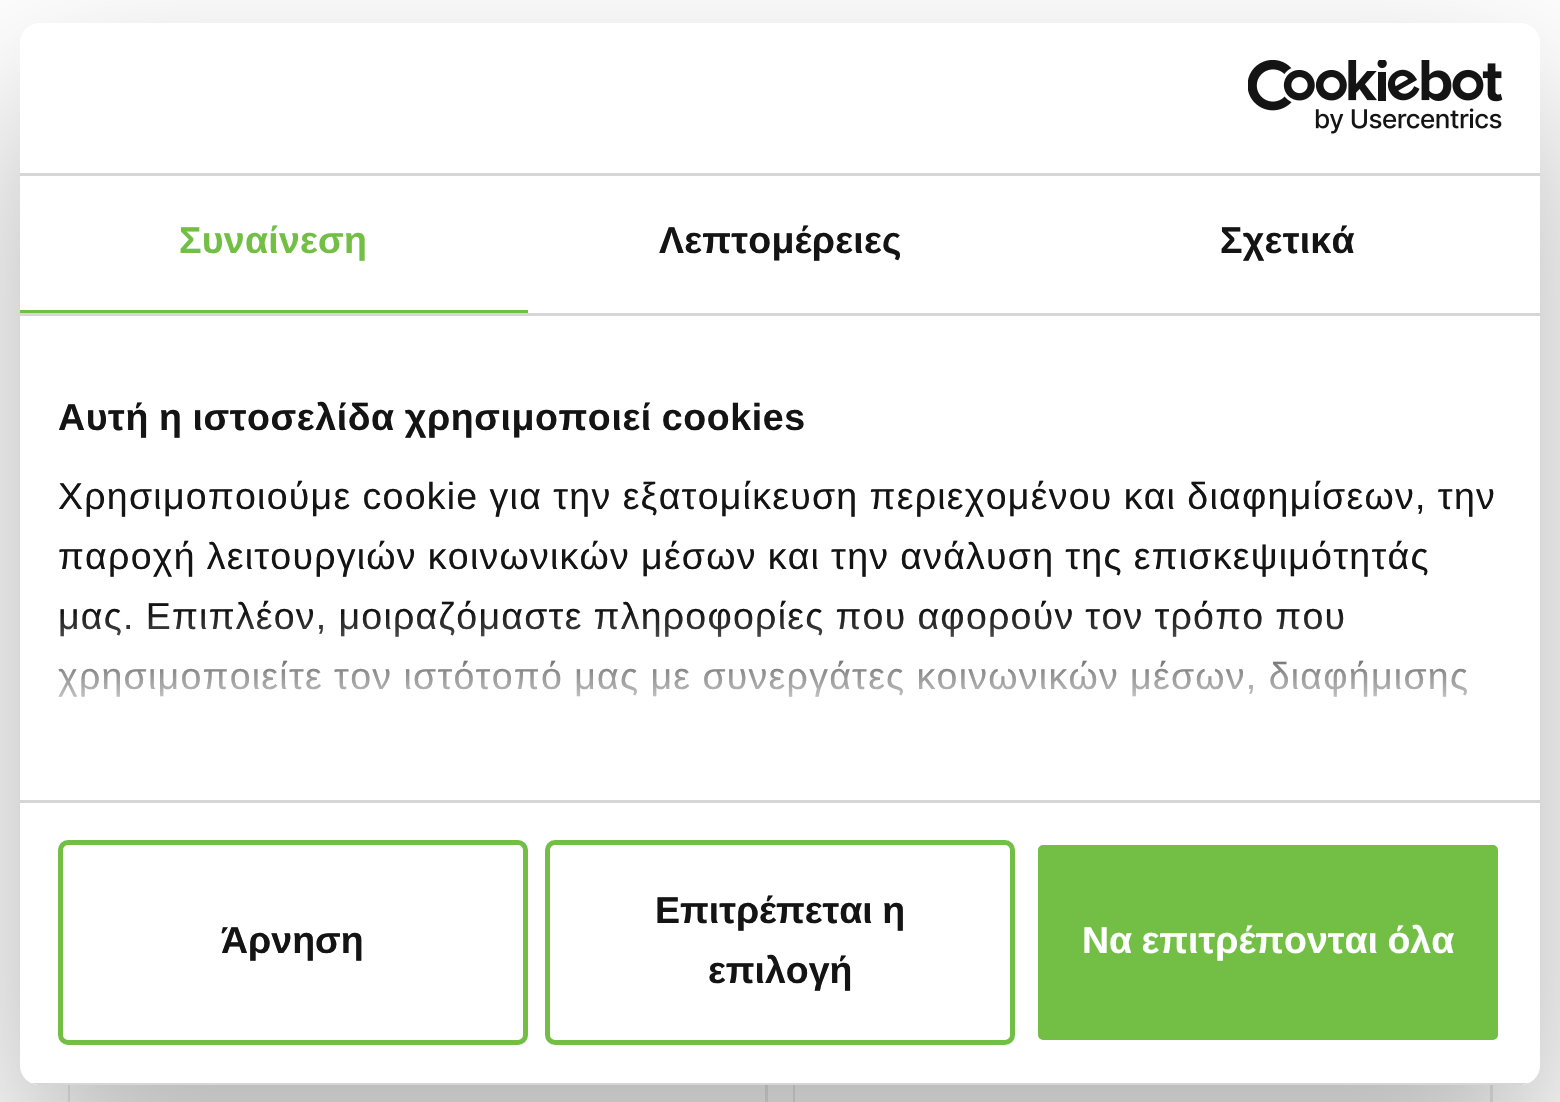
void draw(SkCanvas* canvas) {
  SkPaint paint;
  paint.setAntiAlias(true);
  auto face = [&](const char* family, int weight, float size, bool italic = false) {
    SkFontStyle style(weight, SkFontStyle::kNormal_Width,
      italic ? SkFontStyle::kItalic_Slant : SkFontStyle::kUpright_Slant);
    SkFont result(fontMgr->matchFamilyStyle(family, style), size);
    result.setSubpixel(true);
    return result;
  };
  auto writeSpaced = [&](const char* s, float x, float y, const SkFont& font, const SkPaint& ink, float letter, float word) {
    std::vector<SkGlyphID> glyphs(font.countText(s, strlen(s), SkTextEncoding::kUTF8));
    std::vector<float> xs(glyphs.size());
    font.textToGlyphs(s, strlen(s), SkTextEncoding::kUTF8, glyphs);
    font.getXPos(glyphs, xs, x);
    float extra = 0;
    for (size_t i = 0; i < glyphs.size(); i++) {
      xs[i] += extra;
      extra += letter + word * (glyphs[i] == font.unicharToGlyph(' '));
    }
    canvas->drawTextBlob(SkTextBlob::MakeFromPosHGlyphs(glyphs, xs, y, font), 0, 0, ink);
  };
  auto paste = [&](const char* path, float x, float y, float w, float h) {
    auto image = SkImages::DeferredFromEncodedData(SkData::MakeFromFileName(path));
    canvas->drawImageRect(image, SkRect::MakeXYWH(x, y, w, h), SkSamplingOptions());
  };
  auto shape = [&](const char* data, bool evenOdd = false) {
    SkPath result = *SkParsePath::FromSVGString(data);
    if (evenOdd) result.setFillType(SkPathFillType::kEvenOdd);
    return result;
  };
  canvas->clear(0xffffffff);
  paint.setStroke(true);
  paint.setStrokeWidth(3);
  paint.setColor(0xffeaeaea);
  canvas->drawRect(SkRect::MakeXYWH(69.5f, 656.5f, 697, 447), paint);
  paste("img/2.png", 70, 1085, 590, 17);
  canvas->drawRect(SkRect::MakeXYWH(794.5f, 656.5f, 697, 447), paint);
  paste("img/3.png", 795, 1085, 541, 17);
  canvas->save();
  canvas->clipPath(shape("M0 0H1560V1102H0ZM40 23H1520C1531 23 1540 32 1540 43V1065C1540 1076 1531 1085 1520 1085H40C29 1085 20 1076 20 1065V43C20 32 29 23 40 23Z", true), true);
  paint.setStroke(false);
  paint.setColor(0x4d000000);
  paint.setMaskFilter(SkMaskFilter::MakeBlur(kNormal_SkBlurStyle, 85));
  canvas->drawRoundRect(SkRect::MakeXYWH(20, 103, 1520, 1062), 20, 20, paint);
  paint.setMaskFilter(nullptr);
  canvas->restore();
  paint.setColor(0xffffffff);
  canvas->drawRoundRect(SkRect::MakeXYWH(20, 23, 1520, 1062), 20, 20, paint);
  paint.setColor(0xffd6d6d6);
  canvas->drawRect(SkRect::MakeXYWH(20, 173, 1520, 3), paint);
  paste("img/1.png", 1248, 60, 255, 74);
  {
    const struct { float x, y, w, h; SkColor color; } items[] = {
      {20, 313, 1520, 3, 0xffd6d6d6},
      {20, 310, 508, 3, 0xff73bf45},
      {20, 800, 1520, 3, 0xffd6d6d6},
    };
    for (auto [x, y, w, h, color] : items) {
      paint.setColor(color);
      canvas->drawRect(SkRect::MakeXYWH(x, y, w, h), paint);
    }
  }
  canvas->save();
  canvas->clipPath(shape("M40 23H1520C1531 23 1540 32 1540 43V1065C1540 1076 1531 1085 1520 1085H40C29 1085 20 1076 20 1065V43C20 32 29 23 40 23Z"), true);
  canvas->drawRect(SkRect::MakeXYWH(31, 1083, 1498, 2), paint);
  canvas->restore();
  paint.setStroke(true);
  paint.setStrokeWidth(5);
  paint.setColor(0xff73bf45);
  canvas->drawRoundRect(SkRect::MakeXYWH(60.5f, 842.5f, 465, 200), 7.5f, 7.5f, paint);
  canvas->drawRoundRect(SkRect::MakeXYWH(547.5f, 842.5f, 465, 200), 7.5f, 7.5f, paint);
  paint.setStroke(false);
  canvas->drawRoundRect(SkRect::MakeXYWH(1035.5f, 842.5f, 465, 200), 7.5f, 7.5f, paint);
  paint.setStroke(true);
  paint.setColor(0xffffffff);
  canvas->drawRoundRect(SkRect::MakeXYWH(1035.5f, 842.5f, 465, 200), 7.5f, 7.5f, paint);
  auto f0 = face("Liberation Sans", 700, 37.5f);
  paint.setStroke(false);
  paint.setColor(0xff73bf45);
  writeSpaced("Συναίνεση", 179, 253, f0, paint, 0.25f, 0);
  paint.setColor(0xff141414);
  writeSpaced("Λεπτομέρειες", 659, 253, f0, paint, 0.25f, 0);
  writeSpaced("Σχετικά", 1220, 253, f0, paint, 0.25f, 0);
  writeSpaced("Αυτή η ιστοσελίδα χρησιμοποιεί cookies", 58, 430, f0, paint, 0.6f, -1);
  auto f1 = face("Liberation Sans", 400, 37.5f);
  writeSpaced("Χρησιμοποιούμε cookie για την εξατομίκευση περιεχομένου και διαφημίσεων, την", 58, 509, f1, paint, 1.25f, -0.5f);
  writeSpaced("παροχή λειτουργιών κοινωνικών μέσων και την ανάλυση της επισκεψιμότητάς", 58, 569, f1, paint, 1.25f, -0.75f);
  writeSpaced("μας. Επιπλέον, μοιραζόμαστε πληροφορίες που αφορούν τον τρόπο που", 58, 629, f1, paint, 1.25f, -0.75f);
  writeSpaced("χρησιμοποιείτε τον ιστότοπό μας με συνεργάτες κοινωνικών μέσων, διαφήμισης", 58, 689, f1, paint, 1.25f, -0.5f);
  {
    const SkColor colors[] = {0xffffffff, 0xccffffff, 0x00ffffff};
    const float stops[] = {0, 0.5f, 1};
    const SkPoint ends[] = {{764, 799}, {764, 611}};
    paint.setShader(SkGradientShader::MakeLinear(ends, colors, stops, 3, SkTileMode::kClamp));
    paint.setAlpha(255);
  }
  canvas->drawRect(SkRect::MakeXYWH(58, 614, 1409, 83), paint);
  paint.setShader(nullptr);
  paint.setColor(0xff141414);
  canvas->drawString("Άρνηση", 221, 953, f0, paint);
  writeSpaced("Επιτρέπεται η", 655, 923, f0, paint, 0, -1);
  canvas->drawString("επιλογή", 708, 983, f0, paint);
  paint.setColor(0xffffffff);
  writeSpaced("Να επιτρέπονται όλα", 1082, 953, f0, paint, 0, -1);
}
